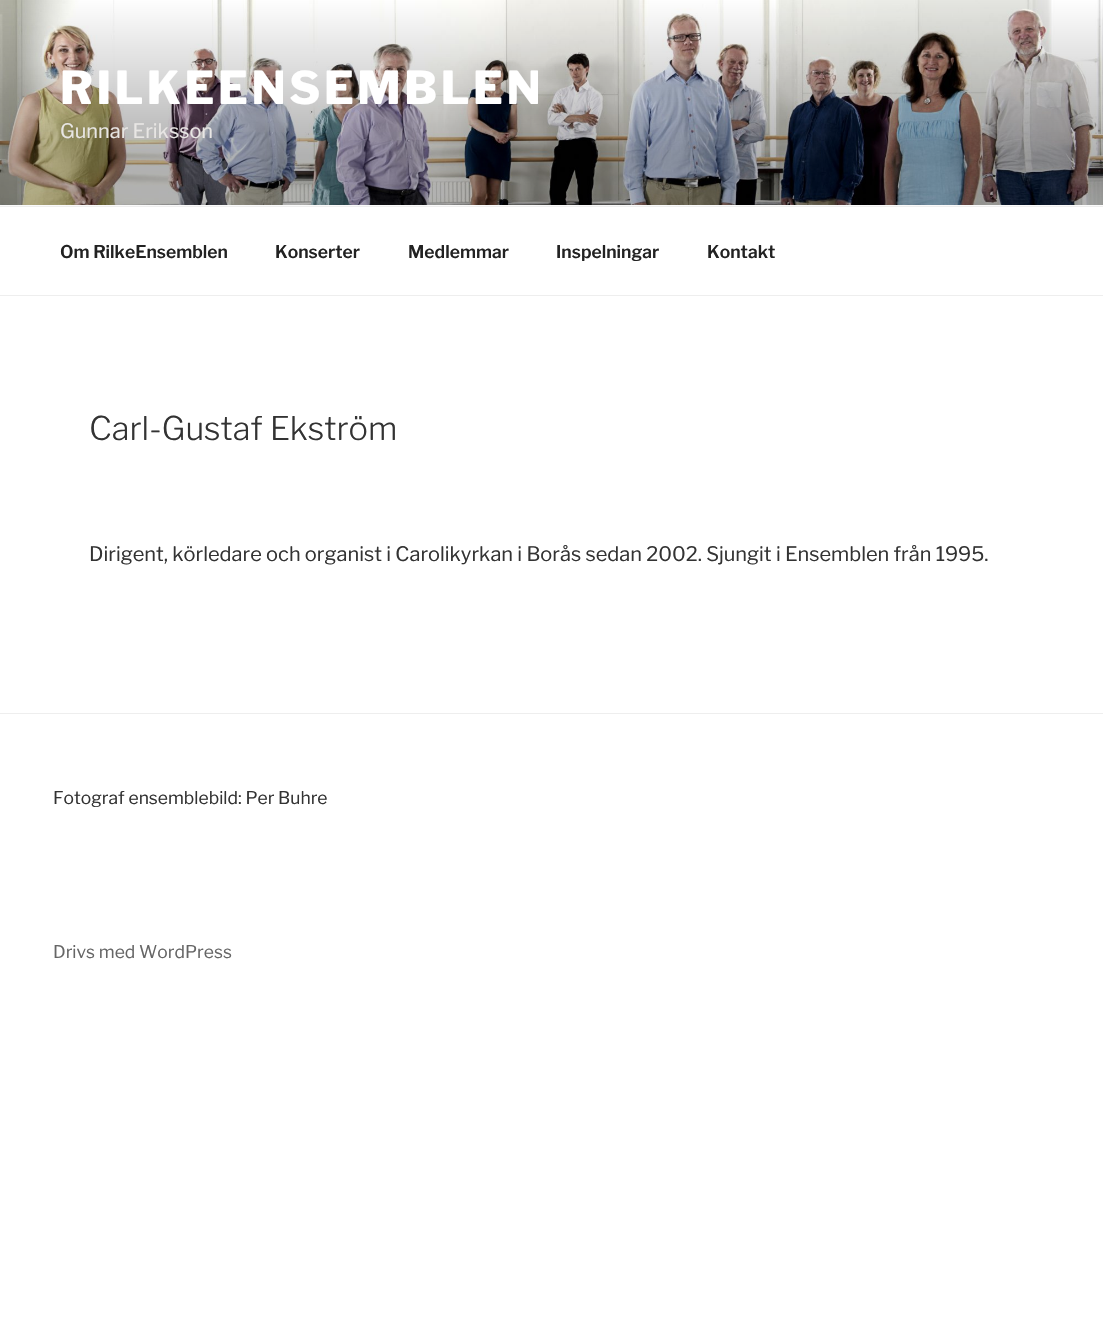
void draw(SkCanvas* canvas) {
  SkPaint paint;
  paint.setAntiAlias(true);
  auto face = [&](const char* family, int weight, float size, bool italic = false) {
    SkFontStyle style(weight, SkFontStyle::kNormal_Width,
      italic ? SkFontStyle::kItalic_Slant : SkFontStyle::kUpright_Slant);
    SkFont result(fontMgr->matchFamilyStyle(family, style), size);
    result.setSubpixel(true);
    return result;
  };
  auto writeSpaced = [&](const char* s, float x, float y, const SkFont& font, const SkPaint& ink, float letter, float word) {
    std::vector<SkGlyphID> glyphs(font.countText(s, strlen(s), SkTextEncoding::kUTF8));
    std::vector<float> xs(glyphs.size());
    font.textToGlyphs(s, strlen(s), SkTextEncoding::kUTF8, glyphs);
    font.getXPos(glyphs, xs, x);
    float extra = 0;
    for (size_t i = 0; i < glyphs.size(); i++) {
      xs[i] += extra;
      extra += letter + word * (glyphs[i] == font.unicharToGlyph(' '));
    }
    canvas->drawTextBlob(SkTextBlob::MakeFromPosHGlyphs(glyphs, xs, y, font), 0, 0, ink);
  };
  auto paste = [&](const char* path, float x, float y, float w, float h) {
    auto image = SkImages::DeferredFromEncodedData(SkData::MakeFromFileName(path));
    canvas->drawImageRect(image, SkRect::MakeXYWH(x, y, w, h), SkSamplingOptions());
  };
  canvas->clear(0xffffffff);
  paint.setColor(0xfffafafa);
  canvas->drawRect(SkRect::MakeXYWH(0, 205, 1103, 1), paint);
  paste("img/1.png", 0, 0, 1103, 205);
  {
    const struct { float x, y, w, h; SkColor color; } items[] = {
      {0, 206, 1103, 1, 0xffeeeeee},
      {0, 295, 1103, 1, 0xffeeeeee},
      {0, 713, 1103, 1, 0xffeeeeee},
    };
    for (auto [x, y, w, h, color] : items) {
      paint.setColor(color);
      canvas->drawRect(SkRect::MakeXYWH(x, y, w, h), paint);
    }
  }
  auto f0 = face("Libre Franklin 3", 100, 45);
  paint.setColor(0xffffffff);
  writeSpaced("RILKEENSEMBLEN", 60, 104, f0, paint, 3.6f, 0);
  auto f1 = face("Libre Franklin", 100, 20);
  paint.setColor(0xffe8e6e4);
  canvas->drawString("Gunnar Eriksson", 60, 138, f1, paint);
  auto f2 = face("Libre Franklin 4", 100, 17.5f);
  paint.setColor(0xff222222);
  {
    const struct { const char* s; float x, y; } items[] = {
      {"Om RilkeEnsemblen", 60, 258},
      {"Konserter", 275, 258},
      {"Medlemmar", 408, 258},
      {"Inspelningar", 556, 258},
      {"Kontakt", 707, 258},
    };
    for (auto [s, x, y] : items) {
      canvas->drawString(s, x, y, f2, paint);
    }
  }
  auto f3 = face("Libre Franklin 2", 100, 32.5f);
  paint.setColor(0xff333333);
  canvas->drawString("Carl-Gustaf Ekström", 89, 440, f3, paint);
  canvas->drawString("Dirigent, körledare och organist i Carolikyrkan i Borås sedan 2002. Sjungit i Ensemblen från 1995.", 89, 561, f1, paint);
  auto f4 = face("Libre Franklin", 100, 17.5f);
  canvas->drawString("Fotograf ensemblebild: Per Buhre", 53, 804, f4, paint);
  paint.setColor(0xff666666);
  canvas->drawString("Drivs med WordPress", 53, 958, f4, paint);
}
